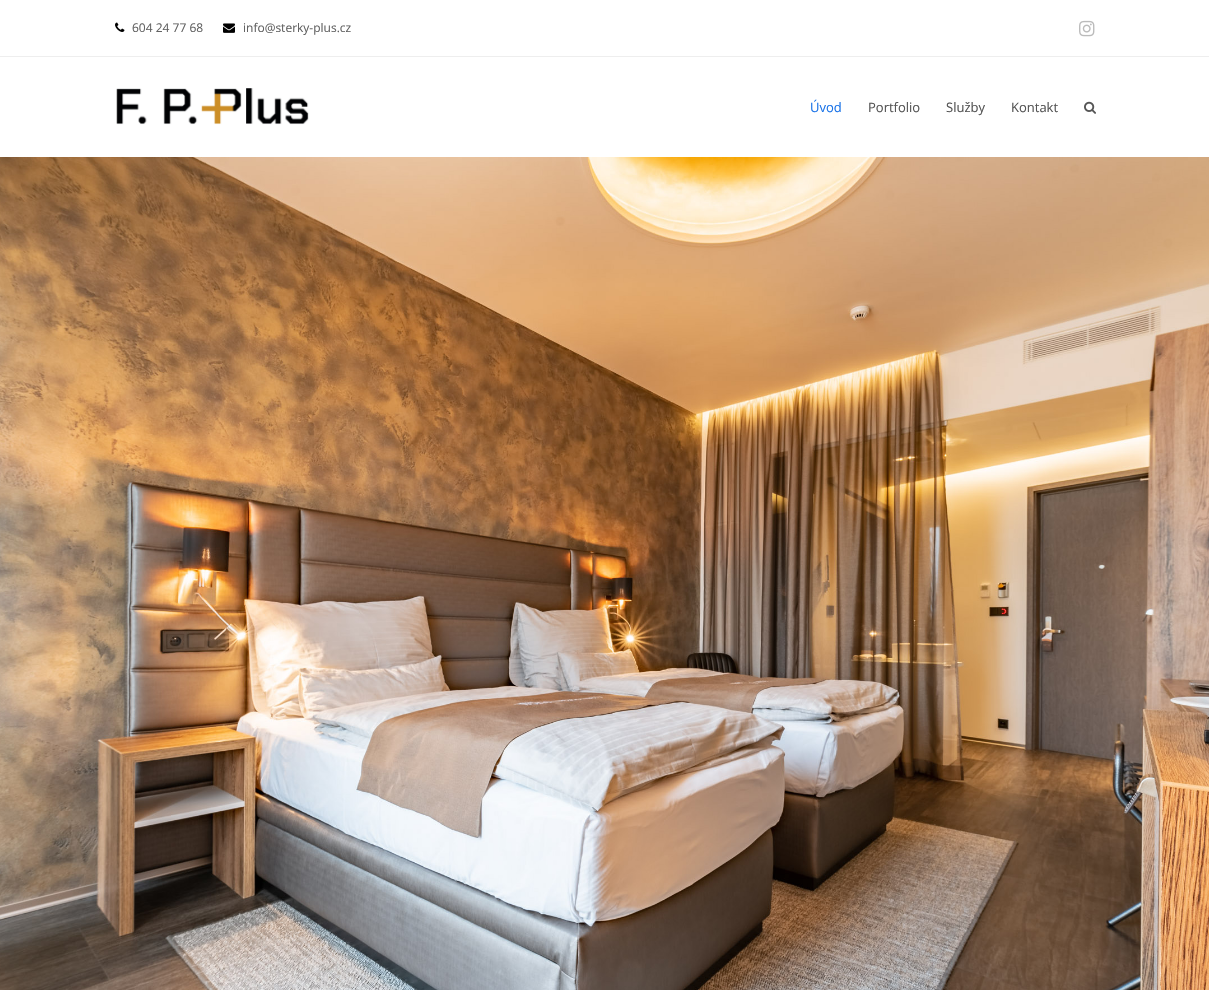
void draw(SkCanvas* canvas) {
  SkPaint paint;
  paint.setAntiAlias(true);
  auto face = [&](const char* family, int weight, float size, bool italic = false) {
    SkFontStyle style(weight, SkFontStyle::kNormal_Width,
      italic ? SkFontStyle::kItalic_Slant : SkFontStyle::kUpright_Slant);
    SkFont result(fontMgr->matchFamilyStyle(family, style), size);
    result.setSubpixel(true);
    return result;
  };
  auto paste = [&](const char* path, float x, float y, float w, float h) {
    auto image = SkImages::DeferredFromEncodedData(SkData::MakeFromFileName(path));
    canvas->drawImageRect(image, SkRect::MakeXYWH(x, y, w, h), SkSamplingOptions());
  };
  canvas->clear(0xffffffff);
  paint.setColor(0xffeeeeee);
  canvas->drawRect(SkRect::MakeXYWH(0, 56, 1209, 1), paint);
  paste("img/1.png", 115, 22, 10, 10);
  paste("img/2.png", 223, 23, 12, 10);
  paste("img/3.png", 1079, 20, 16, 17);
  paste("img/4.png", 116, 88, 193, 37);
  paste("img/5.png", 1084, 101, 12, 13);
  paste("img/6.png", 0, 157, 1209, 833);
  auto f0 = face("Open Sans", 400, 12);
  paint.setColor(0xff616161);
  canvas->drawString("604 24 77 68", 132, 32, f0, paint);
  canvas->drawString("info@sterky-plus.cz", 243, 32, f0, paint);
  auto f1 = face("Open Sans", 400, 13);
  paint.setColor(0xff1a73e8);
  canvas->drawString("Úvod", 810, 112, f1, paint);
  paint.setColor(0xff555555);
  {
    const struct { const char* s; float x, y; } items[] = {
      {"Portfolio", 868, 112},
      {"Služby", 946, 112},
      {"Kontakt", 1011, 112},
    };
    for (auto [s, x, y] : items) {
      canvas->drawString(s, x, y, f1, paint);
    }
  }
}
